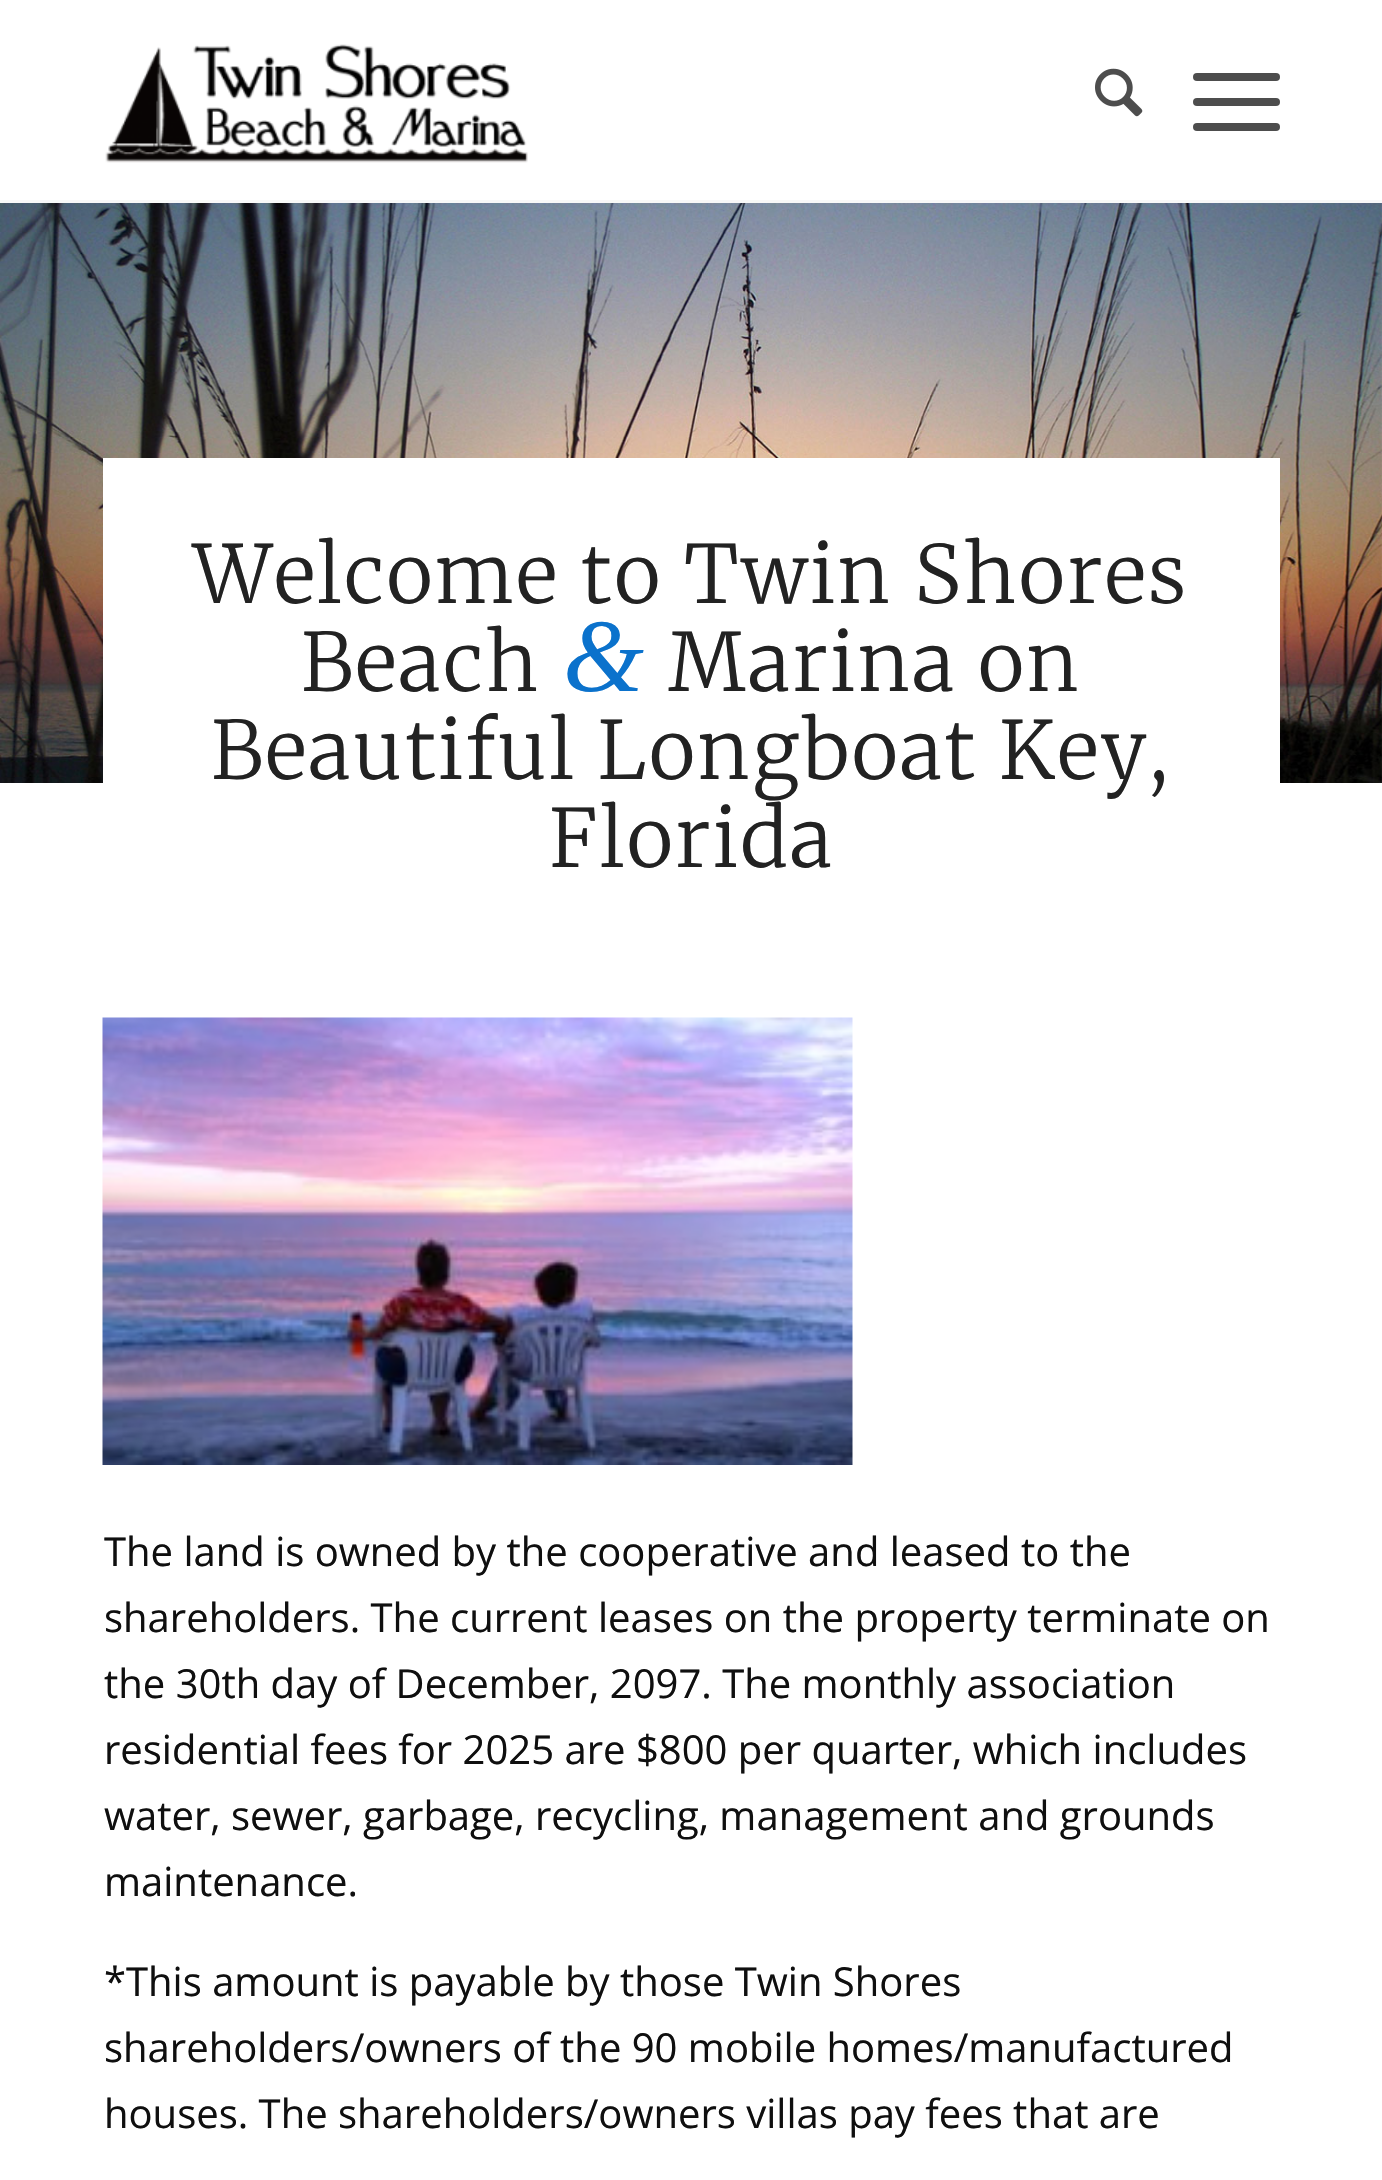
void draw(SkCanvas* canvas) {
  SkPaint paint;
  paint.setAntiAlias(true);
  auto face = [&](const char* family, int weight, float size, bool italic = false) {
    SkFontStyle style(weight, SkFontStyle::kNormal_Width,
      italic ? SkFontStyle::kItalic_Slant : SkFontStyle::kUpright_Slant);
    SkFont result(fontMgr->matchFamilyStyle(family, style), size);
    result.setSubpixel(true);
    return result;
  };
  auto writeSpaced = [&](const char* s, float x, float y, const SkFont& font, const SkPaint& ink, float letter, float word) {
    std::vector<SkGlyphID> glyphs(font.countText(s, strlen(s), SkTextEncoding::kUTF8));
    std::vector<float> xs(glyphs.size());
    font.textToGlyphs(s, strlen(s), SkTextEncoding::kUTF8, glyphs);
    font.getXPos(glyphs, xs, x);
    float extra = 0;
    for (size_t i = 0; i < glyphs.size(); i++) {
      xs[i] += extra;
      extra += letter + word * (glyphs[i] == font.unicharToGlyph(' '));
    }
    canvas->drawTextBlob(SkTextBlob::MakeFromPosHGlyphs(glyphs, xs, y, font), 0, 0, ink);
  };
  auto paste = [&](const char* path, float x, float y, float w, float h) {
    auto image = SkImages::DeferredFromEncodedData(SkData::MakeFromFileName(path));
    canvas->drawImageRect(image, SkRect::MakeXYWH(x, y, w, h), SkSamplingOptions());
  };
  canvas->clear(0xffffffff);
  paint.setColor(0xfff8f8f8);
  canvas->drawRect(SkRect::MakeXYWH(0, 200, 1382, 3), paint);
  paste("img/1.png", 105, 44, 423, 119);
  paste("img/2.png", 1095, 68, 48, 49);
  paint.setColor(0xff4d4d4d);
  canvas->drawRoundRect(SkRect::MakeXYWH(1193, 98, 87, 8), 4, 4, paint);
  canvas->drawRoundRect(SkRect::MakeXYWH(1193, 73, 87, 8), 4, 4, paint);
  canvas->drawRoundRect(SkRect::MakeXYWH(1193, 123, 87, 8), 4, 4, paint);
  paste("img/3.png", 0, 203, 1382, 580);
  paint.setColor(0xffffffff);
  canvas->drawRect(SkRect::MakeXYWH(103, 458, 1177, 325), paint);
  paste("img/4.png", 102, 1017, 751, 448);
  auto f0 = face("Merriweather", 300, 80);
  paint.setColor(0xff222222);
  writeSpaced("Welcome to Twin Shores", 193, 603, f0, paint, 2.5f, 0);
  writeSpaced("Beach", 301, 691, f0, paint, 2.5f, 0);
  auto f1 = face("Liberation Serif", 400, 104, true);
  paint.setColor(0xff0b72cc);
  writeSpaced("&", 563, 691, f1, paint, 2.5f, 0);
  paint.setColor(0xff222222);
  {
    const struct { const char* s; float x, y; } items[] = {
      {"Marina on", 668, 691},
      {"Beautiful Longboat Key,", 211, 779},
      {"Florida", 549, 867},
    };
    for (auto [s, x, y] : items) {
      writeSpaced(s, x, y, f0, paint, 2.5f, 0);
    }
  }
  auto f2 = face("Open Sans", 400, 40);
  paint.setColor(0xff0f0f0f);
  {
    const struct { const char* s; float x, y; } items[] = {
      {"The land is owned by the cooperative and leased to the", 104, 1566},
      {"shareholders. The current leases on the property terminate on", 104, 1632},
      {"the 30th day of December, 2097. The monthly association", 104, 1698},
      {"residential fees for 2025 are $800 per quarter, which includes", 104, 1764},
      {"water, sewer, garbage, recycling, management and grounds", 104, 1830},
      {"maintenance.", 104, 1896},
      {"*This amount is payable by those Twin Shores", 104, 1996},
      {"shareholders/owners of the 90 mobile homes/manufactured", 104, 2062},
      {"houses. The shareholders/owners villas pay fees that are", 104, 2128},
    };
    for (auto [s, x, y] : items) {
      canvas->drawString(s, x, y, f2, paint);
    }
  }
}
